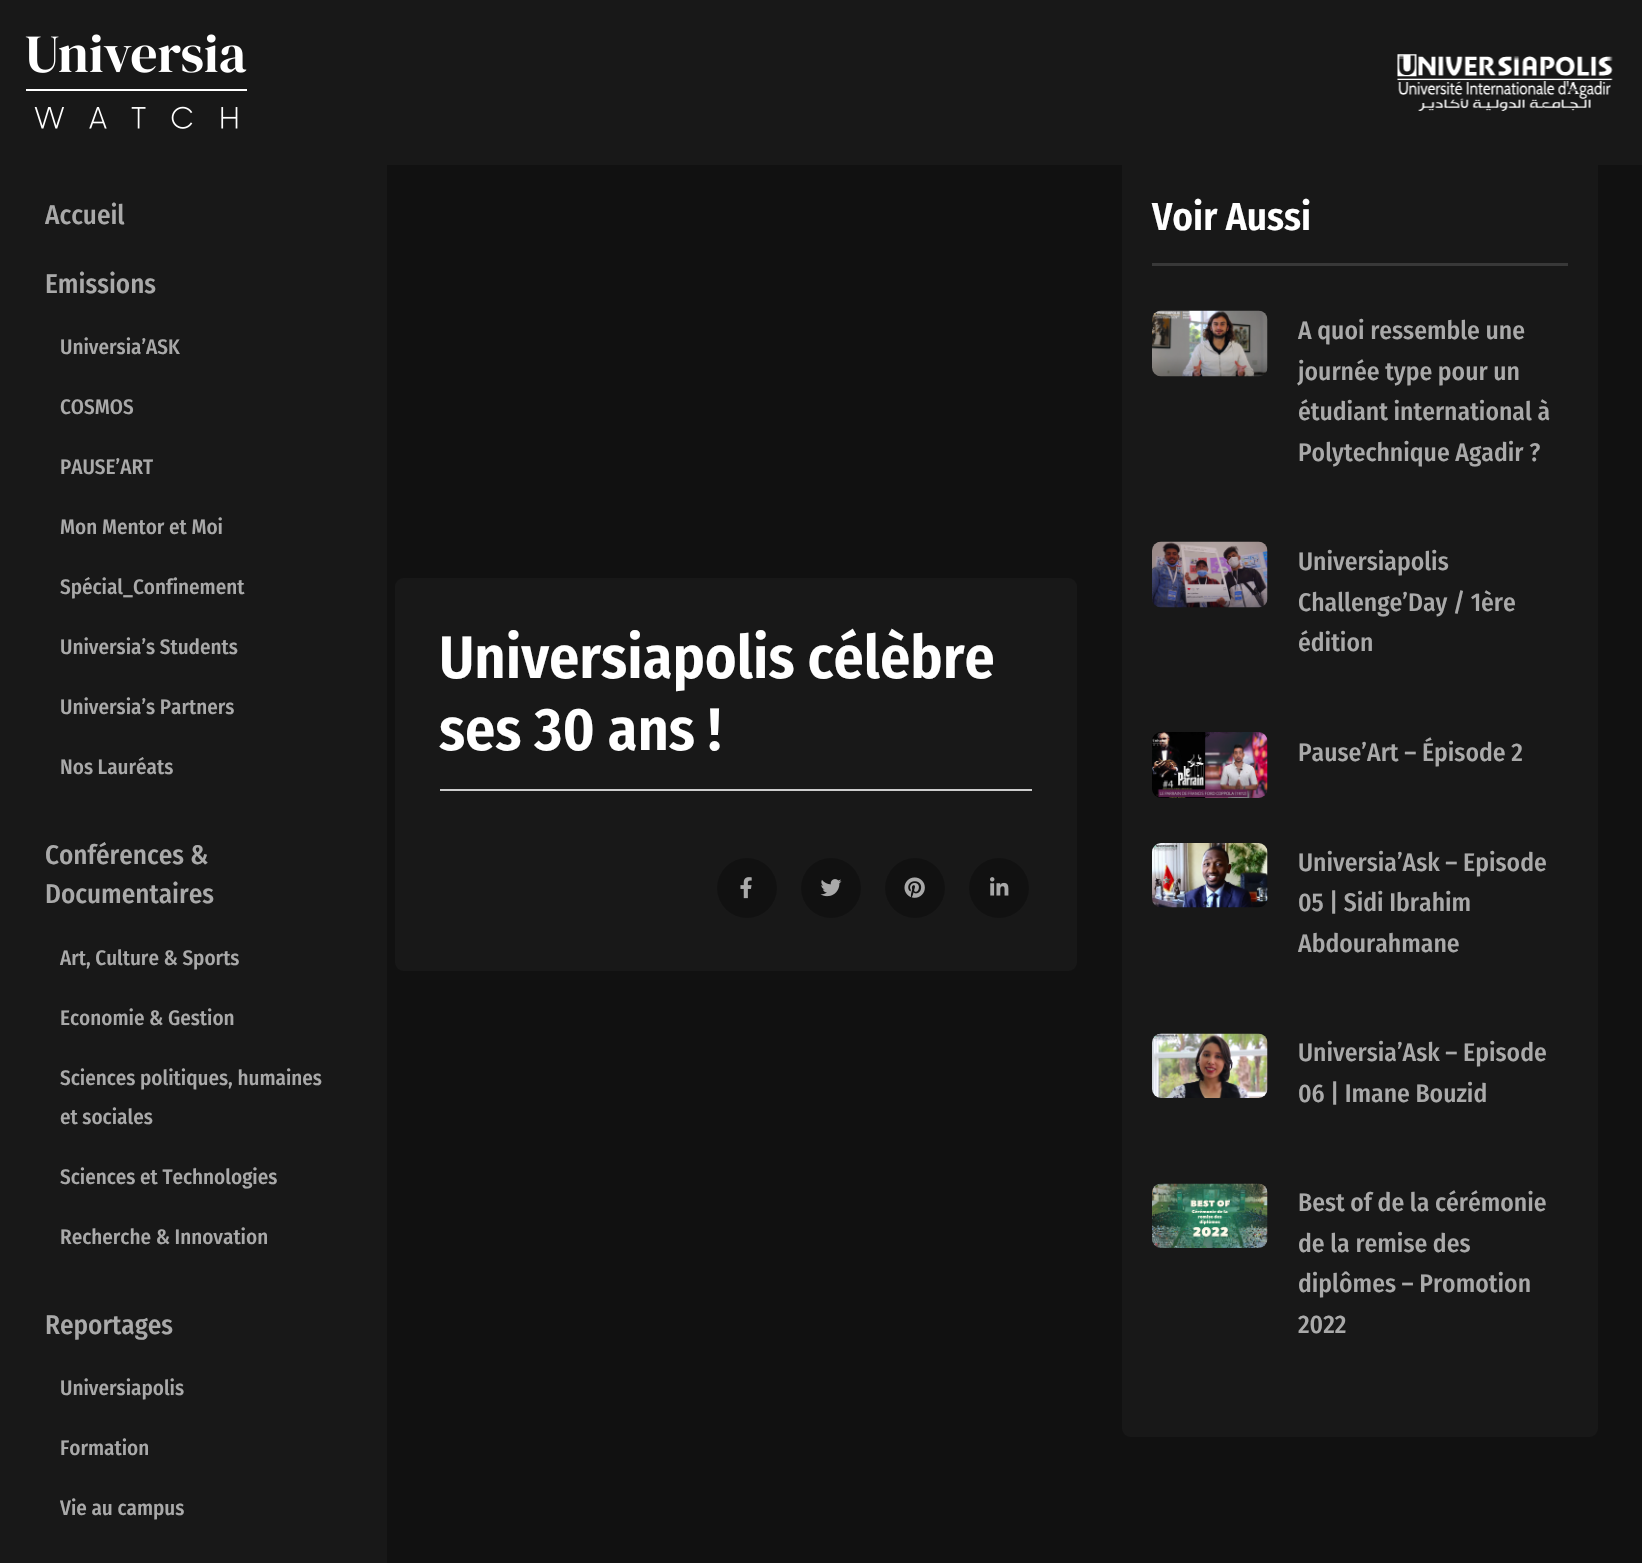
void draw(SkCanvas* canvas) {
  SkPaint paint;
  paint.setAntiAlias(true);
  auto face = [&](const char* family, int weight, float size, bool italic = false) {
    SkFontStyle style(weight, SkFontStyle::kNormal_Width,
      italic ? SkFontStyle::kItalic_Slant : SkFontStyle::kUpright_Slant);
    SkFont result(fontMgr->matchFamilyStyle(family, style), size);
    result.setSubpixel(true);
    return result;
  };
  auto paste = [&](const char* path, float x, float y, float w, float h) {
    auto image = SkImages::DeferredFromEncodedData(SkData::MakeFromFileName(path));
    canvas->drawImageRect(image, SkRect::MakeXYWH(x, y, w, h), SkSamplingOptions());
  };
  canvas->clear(0xff111111);
  paint.setColor(0xff181818);
  canvas->drawRoundRect(SkRect::MakeXYWH(1122, 149, 476, 1288), 9, 9, paint);
  canvas->drawRect(SkRect::MakeXYWH(0, 0, 1642, 165), paint);
  paste("img/1.png", 25, 34, 222, 95);
  paste("img/2.png", 1397, 54, 216, 57);
  canvas->drawRect(SkRect::MakeXYWH(0, 165, 387, 1398), paint);
  canvas->drawRoundRect(SkRect::MakeXYWH(395, 578, 682, 393), 9, 9, paint);
  paint.setColor(0xffcccccc);
  canvas->drawRect(SkRect::MakeXYWH(440, 789, 592, 2), paint);
  paint.setColor(0xff111111);
  canvas->drawCircle(747, 888, 30, paint);
  paste("img/3.png", 740, 877, 12, 22);
  canvas->drawCircle(831, 888, 30, paint);
  paste("img/4.png", 820, 879, 22, 18);
  canvas->drawCircle(915, 888, 30, paint);
  paste("img/5.png", 904, 877, 21, 21);
  canvas->drawCircle(999, 888, 30, paint);
  paste("img/6.png", 990, 877, 19, 19);
  paint.setColor(0xff383838);
  canvas->drawRect(SkRect::MakeXYWH(1152, 263, 416, 3), paint);
  paste("img/7.png", 1152, 310, 116, 67);
  paste("img/8.png", 1152, 541, 116, 67);
  paste("img/9.png", 1152, 732, 116, 66);
  paste("img/10.png", 1152, 843, 116, 65);
  paste("img/11.png", 1152, 1033, 116, 65);
  paste("img/12.png", 1152, 1183, 116, 65);
  auto f0 = face("Fira Sans Condensed", 500, 27);
  paint.setColor(0xffa9a9a9);
  canvas->drawString("Accueil", 45, 224, f0, paint);
  canvas->drawString("Emissions", 45, 293, f0, paint);
  auto f1 = face("Fira Sans Condensed", 500, 21);
  {
    const struct { const char* s; float x, y; } items[] = {
      {"Universia’ASK", 60, 354},
      {"COSMOS", 60, 414},
      {"PAUSE’ART", 60, 474},
      {"Mon Mentor et Moi", 60, 534},
      {"Spécial_Confinement", 60, 594},
      {"Universia’s Students", 60, 654},
      {"Universia’s Partners", 60, 714},
      {"Nos Lauréats", 60, 774},
    };
    for (auto [s, x, y] : items) {
      canvas->drawString(s, x, y, f1, paint);
    }
  }
  canvas->drawString("Conférences &", 45, 864, f0, paint);
  canvas->drawString("Documentaires", 45, 903, f0, paint);
  {
    const struct { const char* s; float x, y; } items[] = {
      {"Art, Culture & Sports", 60, 965},
      {"Economie & Gestion", 60, 1025},
      {"Sciences politiques, humaines", 60, 1085},
      {"et sociales", 60, 1124},
      {"Sciences et Technologies", 60, 1184},
      {"Recherche & Innovation", 60, 1244},
    };
    for (auto [s, x, y] : items) {
      canvas->drawString(s, x, y, f1, paint);
    }
  }
  canvas->drawString("Reportages", 45, 1334, f0, paint);
  {
    const struct { const char* s; float x, y; } items[] = {
      {"Universiapolis", 60, 1395},
      {"Formation", 60, 1455},
      {"Vie au campus", 60, 1515},
    };
    for (auto [s, x, y] : items) {
      canvas->drawString(s, x, y, f1, paint);
    }
  }
  auto f2 = face("Fira Sans Condensed", 600, 60);
  paint.setColor(0xffffffff);
  canvas->drawString("Universiapolis célèbre", 439, 678, f2, paint);
  canvas->drawString("ses 30 ans !", 439, 750, f2, paint);
  auto f3 = face("Fira Sans Condensed", 600, 39);
  canvas->drawString("Voir Aussi", 1152, 230, f3, paint);
  auto f4 = face("Fira Sans Condensed", 500, 25.5f);
  paint.setColor(0xffa9a9a9);
  {
    const struct { const char* s; float x, y; } items[] = {
      {"A quoi ressemble une", 1298, 339},
      {"journée type pour un", 1298, 380},
      {"étudiant international à", 1298, 420},
      {"Polytechnique Agadir ?", 1298, 461},
      {"Universiapolis", 1298, 570},
      {"Challenge’Day / 1ère", 1298, 611},
      {"édition", 1298, 651},
      {"Pause’Art – Épisode 2", 1298, 761},
      {"Universia’Ask – Episode", 1298, 871},
      {"05 | Sidi Ibrahim", 1298, 911},
      {"Abdourahmane", 1298, 952},
      {"Universia’Ask – Episode", 1298, 1061},
      {"06 | Imane Bouzid", 1298, 1102},
      {"Best of de la cérémonie", 1298, 1211},
      {"de la remise des", 1298, 1252},
      {"diplômes – Promotion", 1298, 1292},
      {"2022", 1298, 1333},
    };
    for (auto [s, x, y] : items) {
      canvas->drawString(s, x, y, f4, paint);
    }
  }
}
